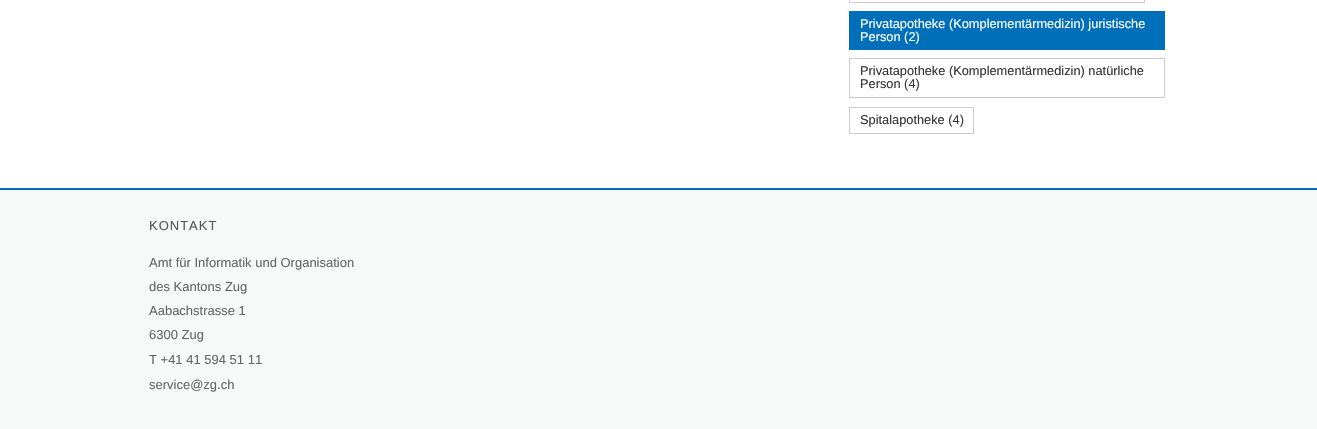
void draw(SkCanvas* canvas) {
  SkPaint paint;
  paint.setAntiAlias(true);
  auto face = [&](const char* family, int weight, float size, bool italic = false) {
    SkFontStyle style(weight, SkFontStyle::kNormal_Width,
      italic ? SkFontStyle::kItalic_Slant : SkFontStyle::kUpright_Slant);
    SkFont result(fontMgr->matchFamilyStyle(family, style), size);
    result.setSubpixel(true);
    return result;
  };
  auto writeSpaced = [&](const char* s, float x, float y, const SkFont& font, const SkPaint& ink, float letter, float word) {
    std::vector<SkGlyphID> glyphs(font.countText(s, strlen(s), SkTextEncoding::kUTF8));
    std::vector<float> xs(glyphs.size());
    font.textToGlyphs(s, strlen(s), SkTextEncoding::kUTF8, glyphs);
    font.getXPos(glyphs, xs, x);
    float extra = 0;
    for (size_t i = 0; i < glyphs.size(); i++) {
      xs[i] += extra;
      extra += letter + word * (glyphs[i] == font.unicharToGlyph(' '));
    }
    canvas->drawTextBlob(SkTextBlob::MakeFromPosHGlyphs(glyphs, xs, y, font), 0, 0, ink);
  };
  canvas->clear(0xffffffff);
  paint.setStroke(true);
  paint.setStrokeWidth(1);
  paint.setColor(0xffcbcccc);
  canvas->drawRect(SkRect::MakeXYWH(849.5f, -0.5f, 295, 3), paint);
  paint.setStroke(false);
  paint.setColor(0xff006fba);
  canvas->drawRect(SkRect::MakeXYWH(849, 11, 316, 39), paint);
  paint.setStroke(true);
  paint.setColor(0xffcbcccc);
  canvas->drawRect(SkRect::MakeXYWH(849.5f, 58.5f, 315, 39), paint);
  canvas->drawRect(SkRect::MakeXYWH(849.5f, 107.5f, 124, 26), paint);
  paint.setStroke(false);
  paint.setColor(0xff006fba);
  canvas->drawRect(SkRect::MakeXYWH(0, 188, 1317, 2), paint);
  paint.setColor(0xfff7f8f8);
  canvas->drawRect(SkRect::MakeXYWH(0, 190, 1317, 239), paint);
  auto f0 = face("Liberation Sans", 400, 12.8f);
  paint.setColor(0xffffffff);
  canvas->drawString("Privatapotheke (Komplementärmedizin) juristische", 860, 28, f0, paint);
  canvas->drawString("Person (2)", 860, 41, f0, paint);
  paint.setColor(0xff333333);
  {
    const struct { const char* s; float x, y; } items[] = {
      {"Privatapotheke (Komplementärmedizin) natürliche", 860, 75},
      {"Person (4)", 860, 88},
      {"Spitalapotheke (4)", 860, 124},
    };
    for (auto [s, x, y] : items) {
      canvas->drawString(s, x, y, f0, paint);
    }
  }
  auto f1 = face("Liberation Sans", 400, 13);
  paint.setColor(0xff555555);
  writeSpaced("KONTAKT", 149, 230, f1, paint, 1, 0);
  paint.setColor(0xff666666);
  {
    const struct { const char* s; float x, y; } items[] = {
      {"Amt für Informatik und Organisation", 149, 267},
      {"des Kantons Zug", 149, 291},
      {"Aabachstrasse 1", 149, 315},
      {"6300 Zug", 149, 339},
      {"T +41 41 594 51 11", 149, 364},
      {"service@zg.ch", 149, 389},
    };
    for (auto [s, x, y] : items) {
      canvas->drawString(s, x, y, f1, paint);
    }
  }
}
